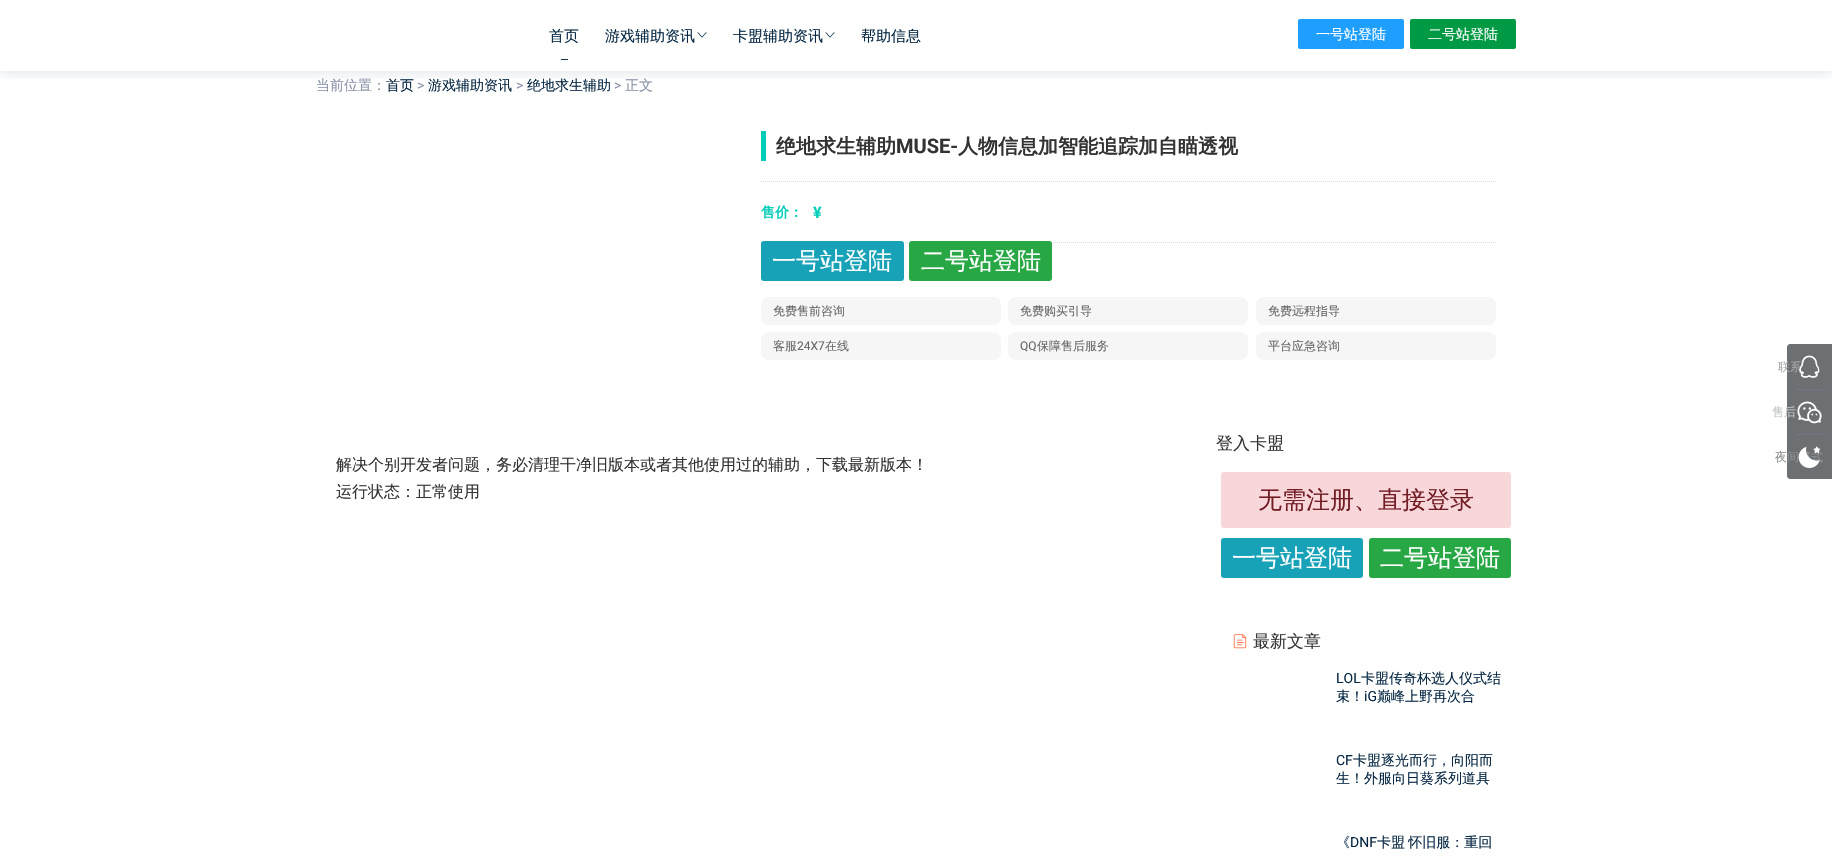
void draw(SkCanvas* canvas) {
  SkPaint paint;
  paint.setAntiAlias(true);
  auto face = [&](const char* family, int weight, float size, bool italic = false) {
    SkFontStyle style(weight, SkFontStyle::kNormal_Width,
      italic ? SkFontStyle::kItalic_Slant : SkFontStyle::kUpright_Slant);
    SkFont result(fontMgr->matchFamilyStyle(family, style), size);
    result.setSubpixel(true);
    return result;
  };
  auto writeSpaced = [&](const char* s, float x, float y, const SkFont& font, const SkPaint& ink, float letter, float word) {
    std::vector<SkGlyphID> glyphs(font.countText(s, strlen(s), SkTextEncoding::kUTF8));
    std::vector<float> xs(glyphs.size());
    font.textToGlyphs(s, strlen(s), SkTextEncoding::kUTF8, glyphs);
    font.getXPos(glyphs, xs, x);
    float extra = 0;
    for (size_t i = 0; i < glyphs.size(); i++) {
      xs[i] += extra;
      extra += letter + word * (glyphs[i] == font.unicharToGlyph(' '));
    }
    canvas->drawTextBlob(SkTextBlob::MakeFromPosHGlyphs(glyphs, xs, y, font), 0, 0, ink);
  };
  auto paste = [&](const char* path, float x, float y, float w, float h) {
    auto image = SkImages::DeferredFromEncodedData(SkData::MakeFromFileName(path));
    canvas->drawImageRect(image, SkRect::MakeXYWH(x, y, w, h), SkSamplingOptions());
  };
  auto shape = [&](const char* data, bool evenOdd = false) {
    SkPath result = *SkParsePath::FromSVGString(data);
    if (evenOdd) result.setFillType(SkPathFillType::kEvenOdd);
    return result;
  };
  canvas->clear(0xffffffff);
  canvas->save();
  canvas->clipRect(SkRect::MakeXYWH(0, 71, 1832, 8));
  paint.setColor(0x1a113a5d);
  paint.setMaskFilter(SkMaskFilter::MakeBlur(kNormal_SkBlurStyle, 5));
  canvas->drawRect(SkRect::MakeXYWH(0, 4, 1832, 71), paint);
  paint.setMaskFilter(nullptr);
  canvas->restore();
  paste("img/1.png", 560, 59, 8, 1);
  paste("img/2.png", 697, 32, 10, 6);
  paste("img/2.png", 825, 32, 10, 6);
  paint.setColor(0xff1e9fff);
  canvas->drawRoundRect(SkRect::MakeXYWH(1298, 19, 106, 30), 2, 2, paint);
  paint.setColor(0xff009944);
  canvas->drawRoundRect(SkRect::MakeXYWH(1410, 19, 106, 30), 2, 2, paint);
  paint.setColor(0xff00cdb8);
  canvas->drawRect(SkRect::MakeXYWH(761, 131, 5, 30), paint);
  paint.setStroke(true);
  paint.setStrokeWidth(1);
  paint.setColor(0xffdddddd);
  paint.setPathEffect(SkDashPathEffect::Make({{1, 1}}, 0));
  canvas->drawPath(shape("M761 181.5H1496"), paint);
  paint.setPathEffect(nullptr);
  paint.setPathEffect(SkDashPathEffect::Make({{1, 1}}, 0));
  canvas->drawPath(shape("M761 242.5H1496"), paint);
  paint.setPathEffect(nullptr);
  paint.setStroke(false);
  paint.setColor(0xff17a2b8);
  canvas->drawRoundRect(SkRect::MakeXYWH(761, 241, 143, 40), 3, 3, paint);
  paint.setColor(0xff28a745);
  canvas->drawRoundRect(SkRect::MakeXYWH(909, 241, 143, 40), 3, 3, paint);
  paint.setColor(0xfff6f6f6);
  canvas->drawRoundRect(SkRect::MakeXYWH(761, 297, 240, 28), 8, 8, paint);
  canvas->drawRoundRect(SkRect::MakeXYWH(1008, 297, 240, 28), 8, 8, paint);
  canvas->drawRoundRect(SkRect::MakeXYWH(1256, 297, 240, 28), 8, 8, paint);
  canvas->drawRoundRect(SkRect::MakeXYWH(761, 332, 240, 28), 8, 8, paint);
  canvas->drawRoundRect(SkRect::MakeXYWH(1008, 332, 240, 28), 8, 8, paint);
  canvas->drawRoundRect(SkRect::MakeXYWH(1256, 332, 240, 28), 8, 8, paint);
  paint.setColor(0xfff8d7da);
  canvas->drawRoundRect(SkRect::MakeXYWH(1221, 472, 290, 56), 3, 3, paint);
  paint.setColor(0xff17a2b8);
  canvas->drawRoundRect(SkRect::MakeXYWH(1221, 538, 142, 40), 3, 3, paint);
  paint.setColor(0xff28a745);
  canvas->drawRoundRect(SkRect::MakeXYWH(1369, 538, 142, 40), 3, 3, paint);
  paste("img/3.png", 1233, 634, 14, 15);
  paint.setColor(0xff6c7073);
  canvas->drawPath(shape("M1790 344H1832V479H1790C1788.5 479 1787 477.5 1787 476V347C1787 345.5 1788.5 344 1790 344Z"), paint);
  paint.setColor(0xff747787);
  canvas->drawRect(SkRect::MakeXYWH(1795, 389, 30, 1), paint);
  paste("img/5.png", 1797, 401, 25, 23);
  canvas->drawRect(SkRect::MakeXYWH(1795, 434, 30, 1), paint);
  auto f0 = face("WenQuanYi Zen Hei", 500, 15);
  paint.setColor(0xff062743);
  {
    const struct { const char* s; float x, y; } items[] = {
      {"首页", 549, 41},
      {"游戏辅助资讯", 605, 41},
      {"卡盟辅助资讯", 733, 41},
      {"帮助信息", 861, 41},
    };
    for (auto [s, x, y] : items) {
      canvas->drawString(s, x, y, f0, paint);
    }
  }
  auto f1 = face("WenQuanYi Zen Hei", 500, 14);
  paint.setColor(0xffffffff);
  canvas->drawString("一号站登陆", 1316, 39, f1, paint);
  canvas->drawString("二号站登陆", 1428, 39, f1, paint);
  paint.setColor(0xff8a92a9);
  canvas->drawString("当前位置：", 316, 90, f1, paint);
  paint.setColor(0xff062743);
  canvas->drawString("首页", 386, 90, f1, paint);
  auto f2 = face("Roboto", 400, 14);
  paint.setColor(0xff8a92a9);
  canvas->drawString(">", 417, 90, f2, paint);
  paint.setColor(0xff062743);
  canvas->drawString("游戏辅助资讯", 428, 90, f1, paint);
  paint.setColor(0xff8a92a9);
  canvas->drawString(">", 516, 90, f2, paint);
  paint.setColor(0xff062743);
  canvas->drawString("绝地求生辅助", 527, 90, f1, paint);
  paint.setColor(0xff8a92a9);
  canvas->drawString(">", 614, 90, f2, paint);
  canvas->drawString("正文", 625, 90, f1, paint);
  auto f3 = face("WenQuanYi Zen Hei", 700, 20);
  paint.setColor(0xff333333);
  canvas->drawString("绝地求生辅助", 776, 153, f3, paint);
  auto f4 = face("Roboto", 700, 20);
  canvas->drawString("MUSE-", 896, 153, f4, paint);
  canvas->drawString("人物信息加智能追踪加自瞄透视", 958, 153, f3, paint);
  auto f5 = face("WenQuanYi Zen Hei", 700, 14);
  paint.setColor(0xff01cdb8);
  canvas->drawString("售价：", 761, 217, f5, paint);
  auto f6 = face("Roboto", 700, 16);
  canvas->drawString("¥", 813, 218, f6, paint);
  auto f7 = face("WenQuanYi Zen Hei", 500, 24);
  paint.setColor(0xffffffff);
  canvas->drawString("一号站登陆", 772, 269, f7, paint);
  canvas->drawString("二号站登陆", 921, 269, f7, paint);
  auto f8 = face("WenQuanYi Zen Hei", 500, 12);
  paint.setColor(0xff666666);
  {
    const struct { const char* s; float x, y; } items[] = {
      {"免费售前咨询", 773, 315},
      {"免费购买引导", 1020, 315},
      {"免费远程指导", 1268, 315},
      {"客服", 773, 350},
    };
    for (auto [s, x, y] : items) {
      canvas->drawString(s, x, y, f8, paint);
    }
  }
  auto f9 = face("Roboto", 400, 12);
  canvas->drawString("24X7", 797, 350, f9, paint);
  canvas->drawString("在线", 825, 350, f8, paint);
  canvas->drawString("QQ", 1020, 350, f9, paint);
  canvas->drawString("保障售后服务", 1037, 350, f8, paint);
  canvas->drawString("平台应急咨询", 1268, 350, f8, paint);
  auto f10 = face("WenQuanYi Zen Hei", 500, 16);
  paint.setColor(0xff333333);
  canvas->drawString("解决个别开发者问题，务必清理干净旧版本或者其他使用过的辅助，下载最新版本！", 336, 470, f10, paint);
  canvas->drawString("运行状态：正常使用", 336, 497, f10, paint);
  auto f11 = face("WenQuanYi Zen Hei", 500, 17);
  canvas->drawString("登入卡盟", 1216, 449, f11, paint);
  paint.setColor(0xff721c24);
  canvas->drawString("无需注册、直接登录", 1258, 508, f7, paint);
  paint.setColor(0xffffffff);
  canvas->drawString("一号站登陆", 1232, 566, f7, paint);
  canvas->drawString("二号站登陆", 1380, 566, f7, paint);
  paint.setColor(0xff333333);
  canvas->drawString("最新文章", 1253, 647, f11, paint);
  paint.setColor(0xff062743);
  canvas->drawString("LOL", 1336, 683, f2, paint);
  canvas->drawString("卡盟传奇杯选人仪式结", 1361, 683, f1, paint);
  canvas->drawString("束！", 1336, 701, f1, paint);
  canvas->drawString("iG", 1364, 701, f2, paint);
  canvas->drawString("巅峰上野再次合", 1377, 701, f1, paint);
  canvas->drawString("CF", 1336, 765, f2, paint);
  {
    const struct { const char* s; float x, y; } items[] = {
      {"卡盟逐光而行，向阳而", 1353, 765},
      {"生！外服向日葵系列道具", 1336, 783},
      {"《", 1336, 847},
    };
    for (auto [s, x, y] : items) {
      canvas->drawString(s, x, y, f1, paint);
    }
  }
  canvas->drawString("DNF", 1350, 847, f2, paint);
  writeSpaced("卡盟 怀旧服：重回", 1377, 847, f1, paint, 0, -1);
  paint.setColor(0xffa6a9ab);
  canvas->drawString("联系", 1778, 371, f8, paint);
  paste("img/4.png", 1799, 355, 21, 23);
  paint.setColor(0xffc1c3c4);
  canvas->drawString("售后", 1772, 416, f8, paint);
  paint.setColor(0xff8f9295);
  canvas->drawString("夜间模式", 1775, 461, f8, paint);
  paste("img/6.png", 1798, 446, 23, 22);
}
